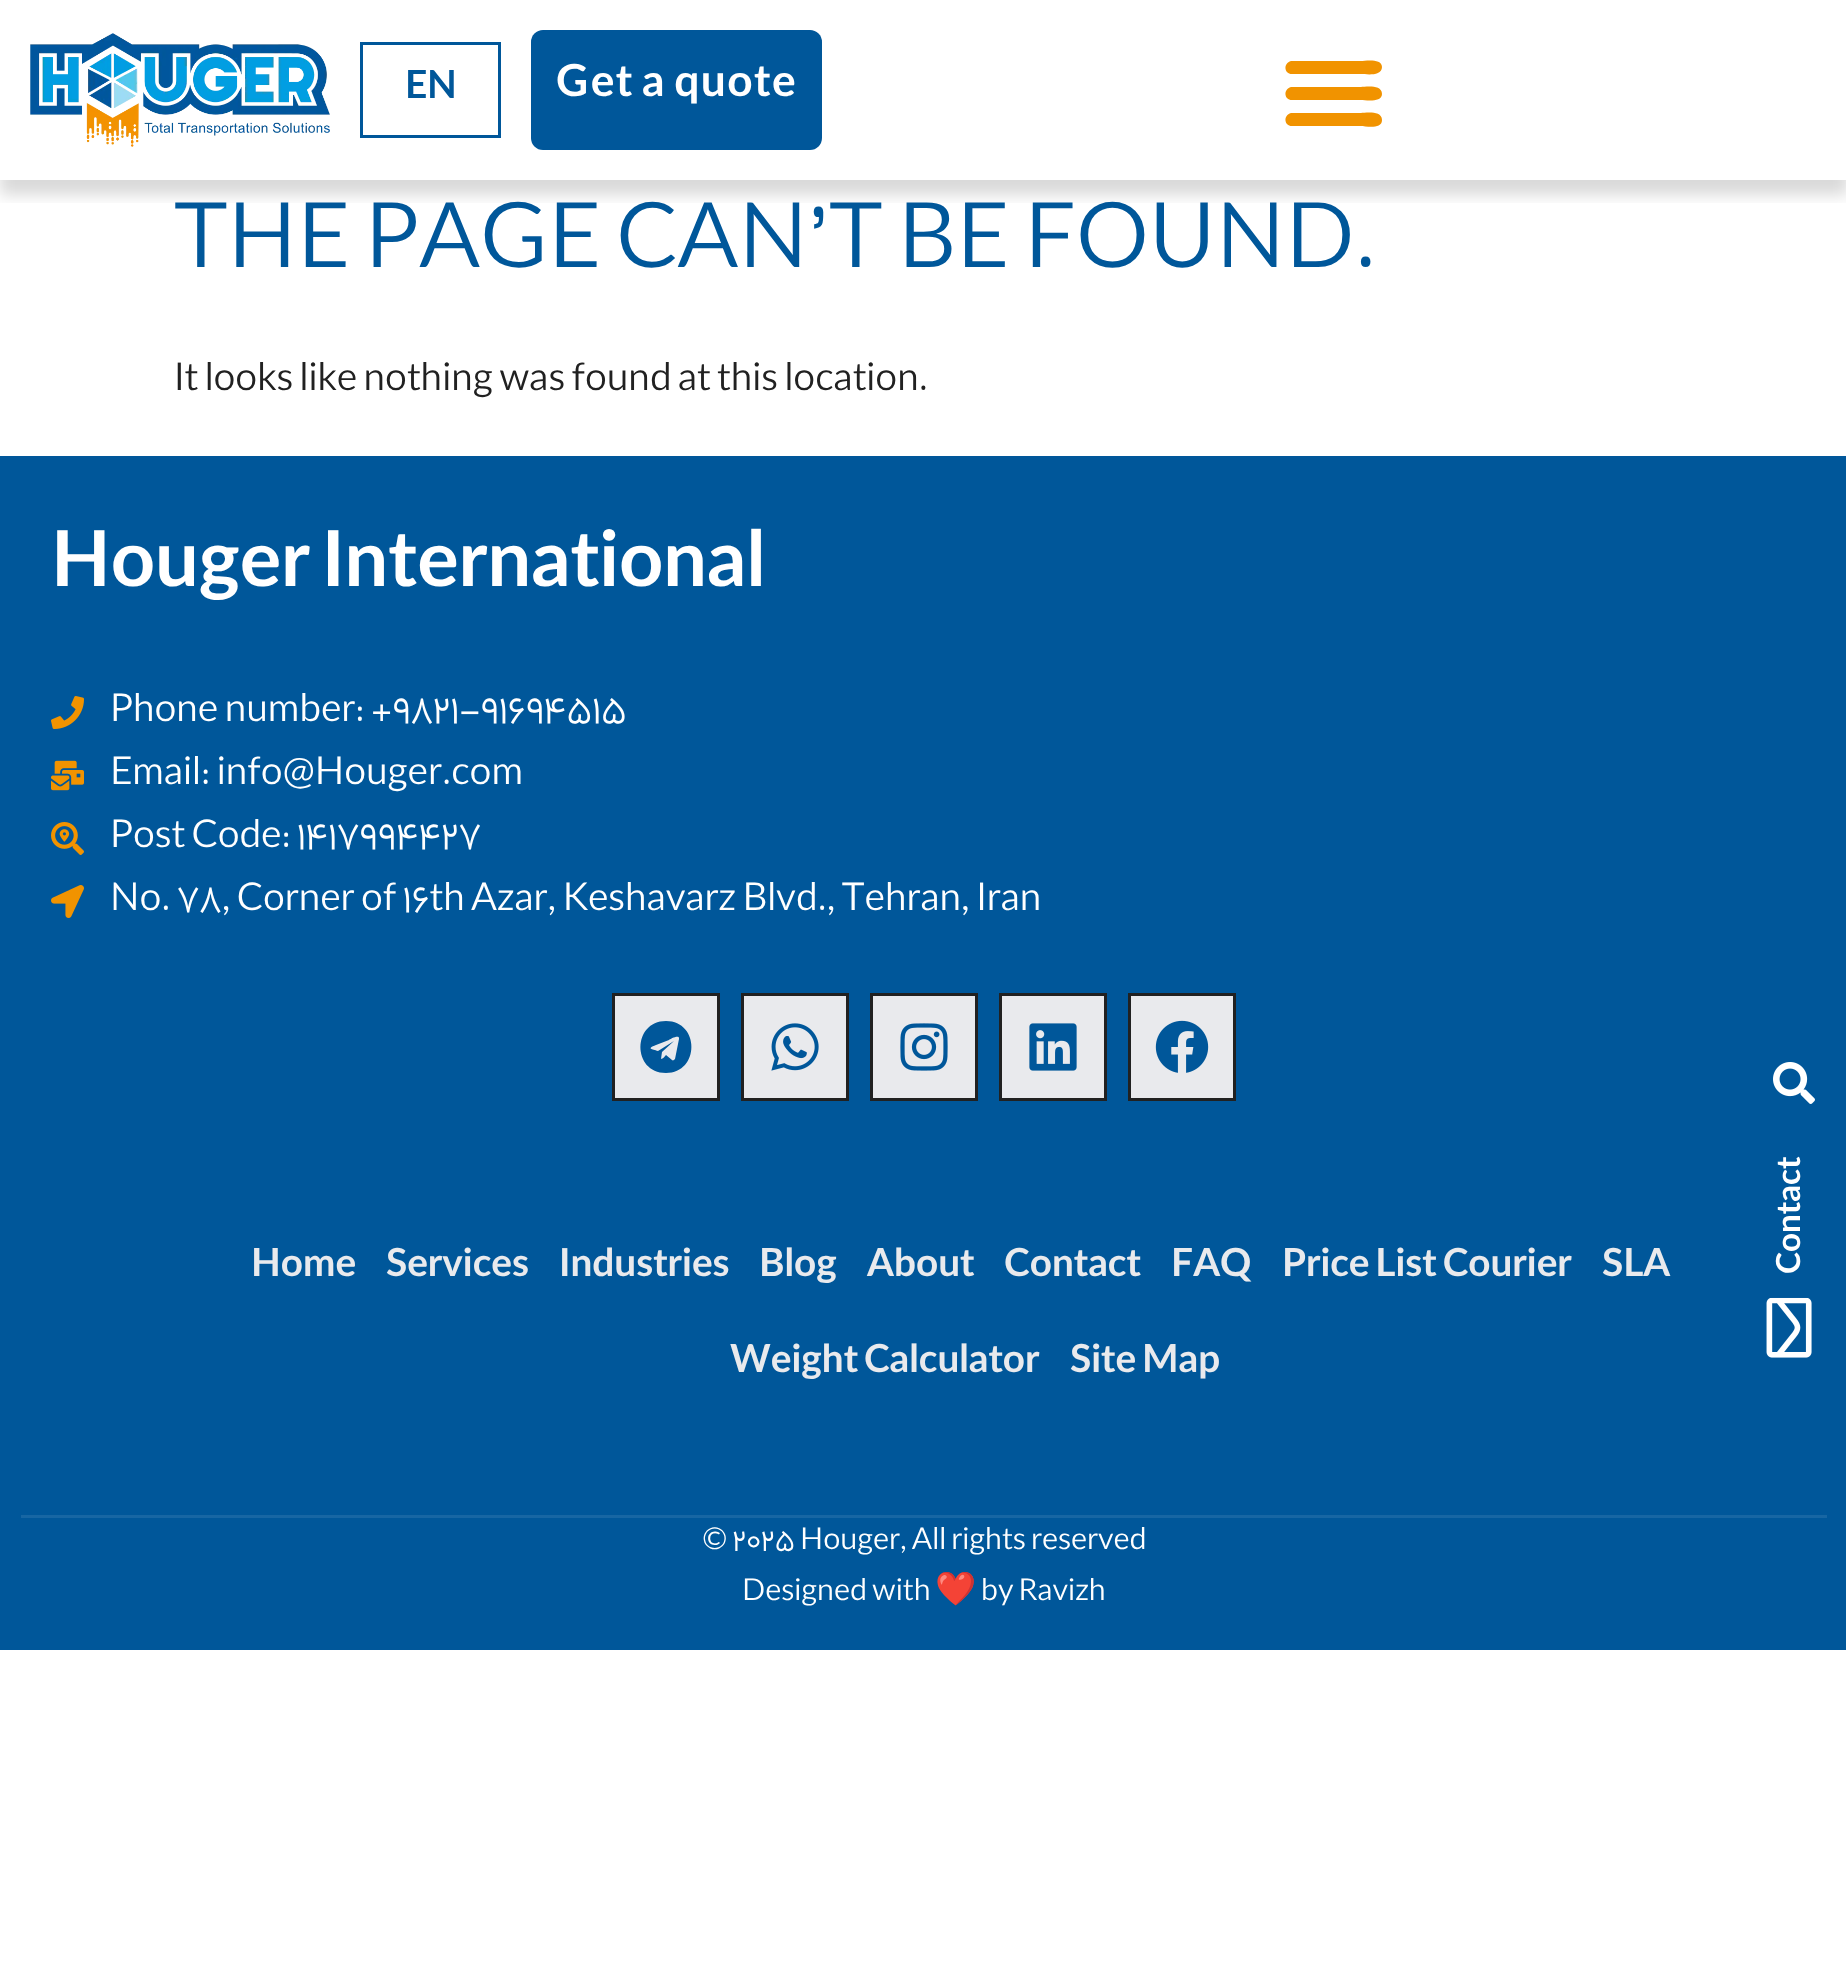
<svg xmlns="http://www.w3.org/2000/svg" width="1846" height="1981">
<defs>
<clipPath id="clip1"><rect x="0" y="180" width="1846" height="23"/></clipPath>
</defs>
<rect width="100%" height="100%" fill="#fff"/>
<g clip-path="url(#clip1)">
<rect y="15" width="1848" height="180" fill="#00000026" filter="blur(7.5px)"/>
</g>
<image x="30" y="33" width="300" height="114" href="media/1.png"/>
<rect x="361.5" y="43.5" width="138" height="93" fill="none" stroke="#00579a" stroke-width="3"/>
<text x="405" y="98" style="font-family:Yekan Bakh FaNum;font-size:42px;font-weight:bold;fill:#00579a">EN</text>
<rect x="531" y="30" width="291" height="120" rx="12" fill="#00579a"/>
<text x="556" y="96" style="font-family:Yekan Bakh FaNum;font-size:48px;font-weight:bold;letter-spacing:1.5px;fill:#fff">Get a quote</text>
<path d="M1292 74h69c4 0 21 3 21-7c0-9-17-6-21-6h-70c-8 2-7 13 1 13zm0 26h69c4 0 21 3 21-6c0-10-17-7-21-7h-70c-8 2-7 13 1 13zm0 26h69c4 0 21 4 21-6c0-10-17-7-21-7h-70c-8 2-7 13 1 13z" fill="#f19300"/>
<text x="174" y="267" style="font-family:Yekan Bakh FaNum;font-size:99px;fill:#00579a">THE PAGE CAN’T BE FOUND.</text>
<text x="174" y="390" style="font-family:Yekan Bakh FaNum;font-size:42px;fill:#212121">It looks like nothing was found at this location.</text>
<rect y="456" width="1846" height="1194" fill="#00579a"/>
<text x="51" y="586" style="font-family:Yekan Bakh FaNum;font-size:84px;font-weight:bold;fill:#fff">Houger International</text>
<image x="51" y="696" width="33" height="33" href="media/2.png"/>
<text x="110" y="721" style="font-family:Yekan Bakh FaNum;font-size:42px;fill:#fff">Phone number: +9821-91694515</text>
<image x="51" y="760" width="33" height="31" href="media/3.png"/>
<text x="110" y="784" style="font-family:Yekan Bakh FaNum;font-size:42px;fill:#fff">Email: info@Houger.com</text>
<image x="51" y="822" width="33" height="33" href="media/4.png"/>
<text x="110" y="847" style="font-family:Yekan Bakh FaNum;font-size:42px;fill:#fff">Post Code: 1417994427</text>
<image x="51" y="885" width="33" height="33" href="media/5.png"/>
<text x="110" y="910" style="font-family:Yekan Bakh FaNum;font-size:42px;fill:#fff">No. 78, Corner of 16th Azar, Keshavarz Blvd., Tehran, Iran</text>
<rect x="613.5" y="994.5" width="105" height="105" fill="#e9eaed" stroke="#212121" stroke-width="3"/>
<path d="M666 1021c-34 0-34 52 0 52c34 0 34-52 0-52zm13 18l-4 20c-1 1-2 2-3 1l-6-5c-1 1-3 4-5 4l1-7l12-11l-16 10c-6-2-12-2-2-6l13-5c1-1 11-6 10-1z" fill="#00579a"/>
<rect x="742.5" y="994.5" width="105" height="105" fill="#e9eaed" stroke="#212121" stroke-width="3"/>
<image x="771" y="1023" width="48" height="48" href="media/6.png"/>
<rect x="871.5" y="994.5" width="105" height="105" fill="#e9eaed" stroke="#212121" stroke-width="3"/>
<image x="900" y="1023" width="48" height="48" href="media/7.png"/>
<rect x="1000.5" y="994.5" width="105" height="105" fill="#e9eaed" stroke="#212121" stroke-width="3"/>
<image x="1029" y="1023" width="48" height="48" href="media/8.png"/>
<rect x="1129.5" y="994.5" width="105" height="105" fill="#e9eaed" stroke="#212121" stroke-width="3"/>
<image x="1155" y="1020" width="54" height="53" href="media/9.png"/>
<text x="251" y="1276" style="font-family:Yekan Bakh FaNum;font-size:42px;font-weight:bold;fill:#e9eaed">Home</text>
<text x="386" y="1276" style="font-family:Yekan Bakh FaNum;font-size:42px;font-weight:bold;fill:#e9eaed">Services</text>
<text x="559" y="1276" style="font-family:Yekan Bakh FaNum;font-size:42px;font-weight:bold;fill:#e9eaed">Industries</text>
<text x="759" y="1276" style="font-family:Yekan Bakh FaNum;font-size:42px;font-weight:bold;fill:#e9eaed">Blog</text>
<text x="867" y="1276" style="font-family:Yekan Bakh FaNum;font-size:42px;font-weight:bold;fill:#e9eaed">About</text>
<text x="1004" y="1276" style="font-family:Yekan Bakh FaNum;font-size:42px;font-weight:bold;fill:#e9eaed">Contact</text>
<text x="1171" y="1276" style="font-family:Yekan Bakh FaNum;font-size:42px;font-weight:bold;fill:#e9eaed">FAQ</text>
<text x="1282" y="1276" style="font-family:Yekan Bakh FaNum;font-size:42px;font-weight:bold;fill:#e9eaed">Price List Courier</text>
<text x="1602" y="1276" style="font-family:Yekan Bakh FaNum;font-size:42px;font-weight:bold;fill:#e9eaed">SLA</text>
<text x="730" y="1372" style="font-family:Yekan Bakh FaNum;font-size:42px;font-weight:bold;fill:#e9eaed">Weight Calculator</text>
<text x="1070" y="1372" style="font-family:Yekan Bakh FaNum;font-size:42px;font-weight:bold;fill:#e9eaed">Site Map</text>
<rect x="21" y="1515" width="1806" height="3" fill="#1766a3"/>
<image x="1773" y="1062" width="42" height="42" href="media/10.png"/>
<text x="1800" y="1274" transform="rotate(-90 1800 1274)" style="font-family:Yekan Bakh FaNum;font-size:36px;font-weight:bold;fill:#fff">Contact</text>
<image x="1766" y="1297" width="46" height="61" href="media/11.png"/>
<text x="742" y="1600" style="font-family:Yekan Bakh FaNum;font-size:33px;fill:#fff">Designed with</text>
<text x="935" y="1600" style="font-family:Noto Color Emoji;font-size:33px;fill:#fff">❤️</text>
<text x="981" y="1600" style="font-family:Yekan Bakh FaNum;font-size:33px;fill:#fff">by Ravizh</text>
<text x="702" y="1549" style="font-family:Yekan Bakh FaNum;font-size:33px;fill:#fff">© 2025 Houger, All rights reserved</text>
</svg>
